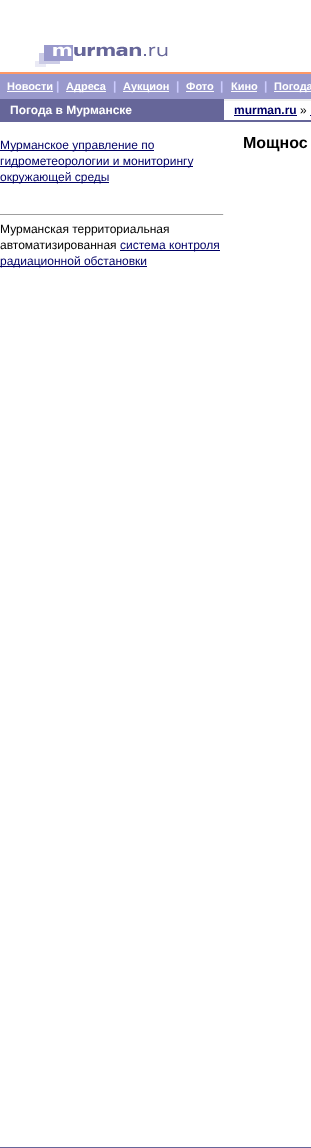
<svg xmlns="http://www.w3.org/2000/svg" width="311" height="1148">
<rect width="100%" height="100%" fill="#fff"/>
<image x="35" y="45" width="133" height="22" href="media/1.png"/>
<rect y="72" width="311" height="2" fill="#f96"/>
<rect y="74" width="311" height="25" fill="#99c"/>
<text x="7" y="90" style="font-family:Liberation Sans;font-size:11px;font-weight:bold;fill:#fff">Новости</text>
<rect x="7" y="91" width="46" height="1" fill="#fff"/>
<text x="56" y="90" style="font-family:Liberation Sans;font-size:12px;font-weight:bold;fill:#ccf">|</text>
<rect x="66" y="91" width="40" height="1" fill="#fff"/>
<text x="66" y="90" style="font-family:Liberation Sans;font-size:11px;font-weight:bold;fill:#fff">Адреса</text>
<text x="113" y="90" style="font-family:Liberation Sans;font-size:12px;font-weight:bold;fill:#ccf">|</text>
<rect x="123" y="91" width="46" height="1" fill="#fff"/>
<text x="123" y="90" style="font-family:Liberation Sans;font-size:11px;font-weight:bold;fill:#fff">Аукцион</text>
<text x="176" y="90" style="font-family:Liberation Sans;font-size:12px;font-weight:bold;fill:#ccf">|</text>
<text x="186" y="90" style="font-family:Liberation Sans;font-size:11px;font-weight:bold;fill:#fff">Фото</text>
<rect x="186" y="91" width="28" height="1" fill="#fff"/>
<text x="220" y="90" style="font-family:Liberation Sans;font-size:12px;font-weight:bold;fill:#ccf">|</text>
<text x="231" y="90" style="font-family:Liberation Sans;font-size:11px;font-weight:bold;fill:#fff">Кино</text>
<rect x="231" y="91" width="26" height="1" fill="#fff"/>
<text x="264" y="90" style="font-family:Liberation Sans;font-size:12px;font-weight:bold;fill:#ccf">|</text>
<rect x="274" y="91" width="37" height="1" fill="#fff"/>
<text x="274" y="90" style="font-family:Liberation Sans;font-size:11px;font-weight:bold;fill:#fff">Погода</text>
<rect y="99" width="224" height="23" fill="#669"/>
<text x="10" y="114" style="font-family:Liberation Sans;font-size:12px;font-weight:bold;fill:#fff">Погода в Мурманске</text>
<rect y="150" width="154" height="1" fill="#006"/>
<text x="0" y="149" style="font-family:Liberation Sans;font-size:12px;fill:#006">Мурманское управление по</text>
<rect y="166" width="193" height="1" fill="#006"/>
<text x="0" y="165" style="font-family:Liberation Sans;font-size:12px;fill:#006">гидрометеорологии и мониторингу</text>
<rect y="182" width="109" height="1" fill="#006"/>
<text x="0" y="181" style="font-family:Liberation Sans;font-size:12px;fill:#006">окружающей среды</text>
<rect y="214" width="224" height="1" fill="#9f9f9f"/>
<rect x="223" y="214" width="1" height="1" fill="#eee"/>
<text x="0" y="233" style="font-family:Liberation Sans;font-size:12px;fill:#000">Мурманская территориальная</text>
<text x="0" y="249" style="font-family:Liberation Sans;font-size:12px;fill:#000">автоматизированная</text>
<rect x="120" y="250" width="100" height="1" fill="#006"/>
<text x="120" y="249" style="font-family:Liberation Sans;font-size:12px;fill:#006">система контроля</text>
<rect y="266" width="147" height="1" fill="#006"/>
<text x="0" y="265" style="font-family:Liberation Sans;font-size:12px;fill:#006">радиационной обстановки</text>
<rect x="224" y="99" width="87" height="2" fill="#eee"/>
<text x="234" y="114" style="font-family:Liberation Sans;font-size:12px;font-weight:bold;fill:#006">murman.ru</text>
<rect x="234" y="115" width="63" height="1" fill="#006"/>
<text x="300" y="114" style="font-family:Liberation Sans;font-size:12px;fill:#000">»</text>
<rect x="310" y="115" width="1" height="1" fill="#006"/>
<rect x="224" y="120" width="87" height="2" fill="#669"/>
<text x="243" y="148" style="font-family:Liberation Sans;font-size:16px;font-weight:bold;fill:#000">Мощнос</text>
<rect y="1147" width="311" height="1" fill="#669"/>
</svg>
